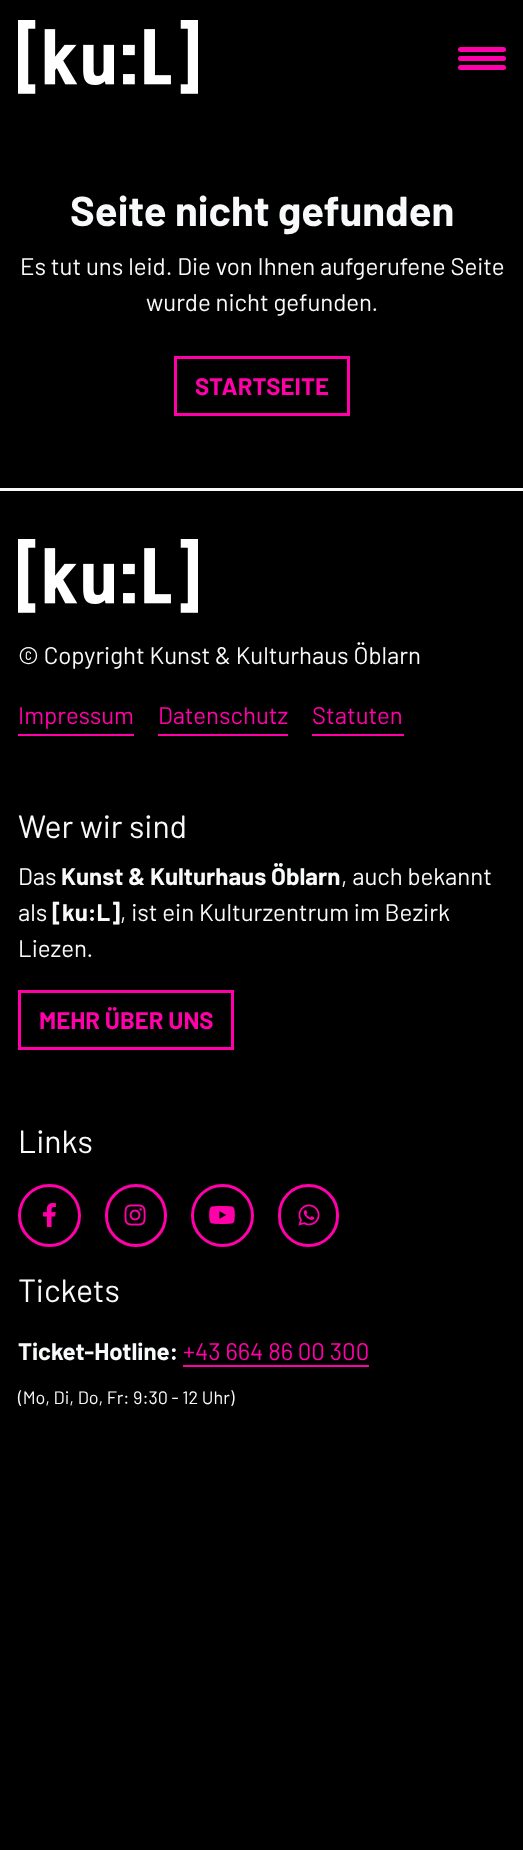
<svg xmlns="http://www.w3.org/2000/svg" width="523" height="1850">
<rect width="100%" height="100%" fill="#000"/>
<image x="18" y="20" width="180" height="74" href="media/1.png"/>
<rect x="458" y="47" width="48" height="5" rx="2.5" fill="#ff00a9"/>
<rect x="458" y="56" width="48" height="5" rx="2.5" fill="#ff00a9"/>
<rect x="458" y="65" width="48" height="5" rx="2.5" fill="#ff00a9"/>
<text x="70" y="226" style="font-family:Barlow;font-size:41.75px;font-weight:bold;fill:#f8f9fa">Seite nicht gefunden</text>
<text x="20" y="275" style="font-family:Barlow;font-size:24px;fill:#f8f9fa">Es tut uns leid. Die von Ihnen aufgerufene Seite</text>
<text x="146" y="311" style="font-family:Barlow;font-size:24px;fill:#f8f9fa">wurde nicht gefunden.</text>
<rect x="175.5" y="357.5" width="173" height="57" fill="none" stroke="#ff00a9" stroke-width="3"/>
<text x="195" y="395" style="font-family:Barlow;font-size:24px;font-weight:bold;fill:#ff00a9">STARTSEITE</text>
<rect y="488" width="523" height="3" fill="#f8f9fa"/>
<image x="18" y="539" width="180" height="74" href="media/1.png"/>
<text x="18" y="664" style="font-family:Barlow;font-size:24px;fill:#f8f9fa">© Copyright Kunst &amp; Kulturhaus Öblarn</text>
<rect x="18" y="734" width="116" height="2" fill="#ff00a9"/>
<text x="18" y="724" style="font-family:Barlow;font-size:24px;fill:#ff00a9">Impressum</text>
<rect x="158" y="734" width="130" height="2" fill="#ff00a9"/>
<text x="158" y="724" style="font-family:Barlow;font-size:24px;fill:#ff00a9">Datenschutz</text>
<rect x="312" y="734" width="92" height="2" fill="#ff00a9"/>
<text x="312" y="724" style="font-family:Barlow;font-size:24px;fill:#ff00a9">Statuten</text>
<text x="18" y="838" style="font-family:Barlow;font-size:32px;fill:#f8f9fa">Wer wir sind</text>
<text x="18" y="885" style="font-family:Barlow;font-size:24px;fill:#f8f9fa">Das</text>
<text x="61" y="885" style="font-family:Barlow;font-size:24px;font-weight:bold;fill:#f8f9fa">Kunst &amp; Kulturhaus Öblarn</text>
<text x="341" y="885" style="font-family:Barlow;font-size:24px;fill:#f8f9fa">, auch bekannt</text>
<text x="18" y="921" style="font-family:Barlow;font-size:24px;fill:#f8f9fa">als</text>
<text x="52" y="921" style="font-family:Barlow;font-size:24px;font-weight:bold;fill:#f8f9fa">[ku:L]</text>
<text x="120" y="921" style="font-family:Barlow;font-size:24px;fill:#f8f9fa">, ist ein Kulturzentrum im Bezirk</text>
<text x="18" y="957" style="font-family:Barlow;font-size:24px;fill:#f8f9fa">Liezen.</text>
<rect x="19.5" y="991.5" width="213" height="57" fill="none" stroke="#ff00a9" stroke-width="3"/>
<text x="39" y="1029" style="font-family:Barlow;font-size:24px;font-weight:bold;fill:#ff00a9">MEHR ÜBER UNS</text>
<text x="18" y="1153" style="font-family:Barlow;font-size:32px;fill:#f8f9fa">Links</text>
<circle cx="49.5" cy="1215.5" r="30" fill="none" stroke="#ff00a9" stroke-width="3"/>
<image x="43" y="1203" width="13" height="24" href="media/2.png"/>
<rect x="106.5" y="1185.5" width="59" height="60" rx="29.5" fill="none" stroke="#ff00a9" stroke-width="3"/>
<image x="124" y="1204" width="22" height="22" href="media/3.png"/>
<circle cx="222.5" cy="1215.5" r="30" fill="none" stroke="#ff00a9" stroke-width="3"/>
<image x="209" y="1206" width="26" height="18" href="media/4.png"/>
<rect x="279.5" y="1185.5" width="58" height="60" rx="29" fill="none" stroke="#ff00a9" stroke-width="3"/>
<image x="298" y="1204" width="22" height="22" href="media/5.png"/>
<text x="18" y="1302" style="font-family:Barlow;font-size:32px;fill:#f8f9fa">Tickets</text>
<text x="18" y="1360" style="font-family:Barlow;font-size:24px;font-weight:bold;fill:#f8f9fa">Ticket-Hotline:</text>
<text x="183" y="1360" style="font-family:Barlow;font-size:24px;fill:#ff00a9">+43 664 86 00 300</text>
<rect x="183" y="1365" width="186" height="2" fill="#ff00a9"/>
<text x="18" y="1404" style="font-family:Barlow;font-size:18px;fill:#f8f9fa">(Mo, Di, Do, Fr: 9:30 - 12 Uhr)</text>
</svg>
